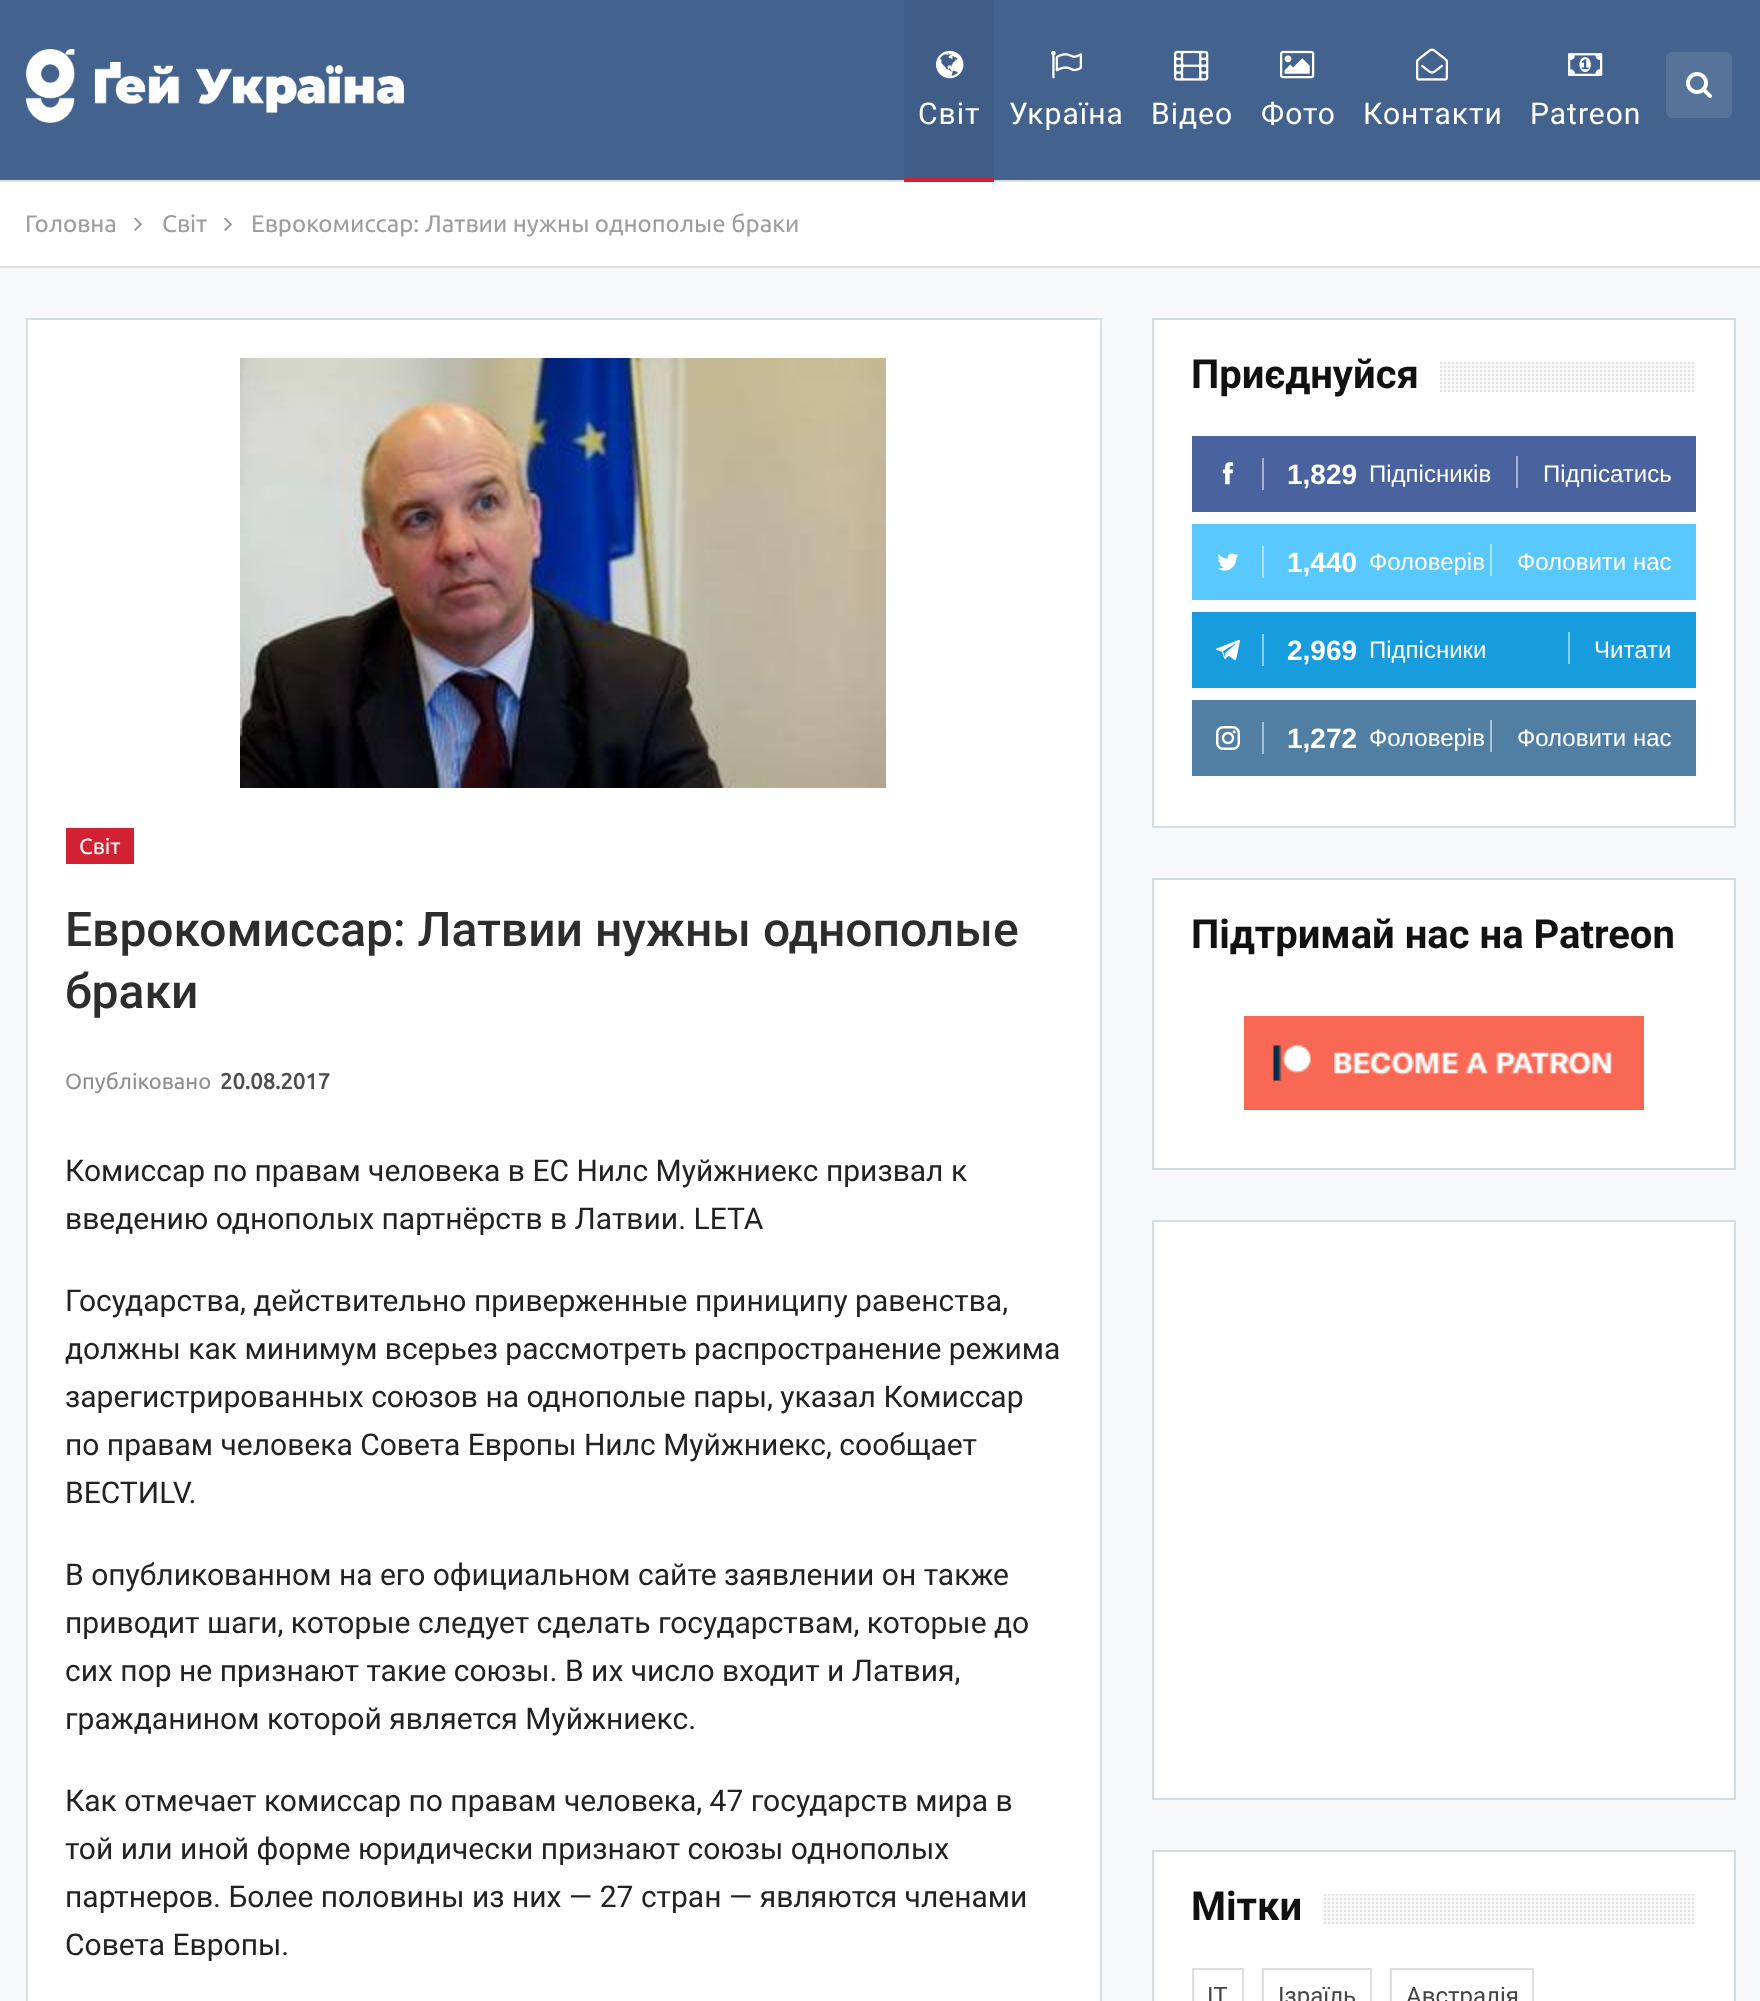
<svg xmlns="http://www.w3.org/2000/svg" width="1760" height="2001">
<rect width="100%" height="100%" fill="#f6f8fa"/>
<rect width="1760" height="180" fill="#43628e"/>
<rect y="180" width="1760" height="2" fill="#dedede"/>
<image x="26" y="49" width="378" height="74" href="media/1.png"/>
<rect x="904" width="90" height="178" fill="#405d87"/>
<image x="936" y="50" width="28" height="29" href="media/2.png"/>
<text x="918" y="124" style="font-family:Roboto;font-size:30px;letter-spacing:1px;fill:#fff">Світ</text>
<rect x="904" y="178" width="90" height="4" fill="#d12133"/>
<image x="1051" y="50" width="31" height="29" href="media/3.png"/>
<text x="1009" y="124" style="font-family:Roboto;font-size:30px;letter-spacing:1px;fill:#fff">Україна</text>
<image x="1174" y="50" width="35" height="31" href="media/4.png"/>
<text x="1151" y="124" style="font-family:Roboto;font-size:30px;letter-spacing:1px;fill:#fff">Відео</text>
<image x="1280" y="50" width="35" height="29" href="media/5.png"/>
<text x="1261" y="124" style="font-family:Roboto;font-size:30px;letter-spacing:1px;fill:#fff">Фото</text>
<image x="1416" y="48" width="32" height="33" href="media/6.png"/>
<text x="1363" y="124" style="font-family:Roboto;font-size:30px;letter-spacing:1px;fill:#fff">Контакти</text>
<image x="1568" y="53" width="35" height="23" href="media/7.png"/>
<text x="1530" y="124" style="font-family:Roboto;font-size:30px;letter-spacing:1px;fill:#fff">Patreon</text>
<rect x="1666" y="52" width="66" height="66" rx="6" fill="#58739a"/>
<image x="1686" y="72" width="26" height="26" href="media/8.png"/>
<rect y="182" width="1760" height="84" fill="#fff"/>
<rect y="266" width="1760" height="2" fill="#e2e2e2"/>
<text x="25" y="232" style="font-family:Ubuntu;font-size:24px;fill:#9e9e9e">Головна</text>
<image x="134" y="217" width="8" height="14" href="media/9.png"/>
<text x="162" y="232" style="font-family:Ubuntu;font-size:24px;fill:#9e9e9e">Світ</text>
<image x="224" y="217" width="8" height="14" href="media/9.png"/>
<text x="251" y="232" style="font-family:Ubuntu;font-size:24px;fill:#9e9e9e">Еврокомиссар: Латвии нужны однополые браки</text>
<rect x="27" y="319" width="1074" height="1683" fill="#fff" stroke="#d2dce3" stroke-width="2"/>
<image x="240" y="358" width="646" height="430" href="media/10.png"/>
<rect x="66" y="828" width="68" height="36" fill="#d12133"/>
<text x="79" y="854" style="font-family:Ubuntu;font-size:22px;fill:#fff">Світ</text>
<text x="65" y="946" style="font-family:Roboto;font-size:48px;font-weight:500;fill:#2d2d2d">Еврокомиссар: Латвии нужны однополые</text>
<text x="65" y="1008" style="font-family:Roboto;font-size:48px;font-weight:500;fill:#2d2d2d">браки</text>
<text x="65" y="1089" style="font-family:Ubuntu;font-size:22px;fill:#8f8f8f">Опубліковано</text>
<text x="220" y="1089" style="font-family:Ubuntu;font-size:22px;font-weight:bold;fill:#4d4d4d">20.08.2017</text>
<text x="65" y="1181" style="font-family:Roboto;font-size:30px;fill:#222">Комиссар по правам человека в ЕС Нилс Муйжниекс призвал к</text>
<text x="65" y="1229" style="font-family:Roboto;font-size:30px;fill:#222">введению однополых партнёрств в Латвии. LETA</text>
<text x="65" y="1311" style="font-family:Roboto;font-size:30px;fill:#222">Государства, действительно приверженные приниципу равенства,</text>
<text x="65" y="1359" style="font-family:Roboto;font-size:30px;fill:#222">должны как минимум всерьез рассмотреть распространение режима</text>
<text x="65" y="1407" style="font-family:Roboto;font-size:30px;fill:#222">зарегистрированных союзов на однополые пары, указал Комиссар</text>
<text x="65" y="1455" style="font-family:Roboto;font-size:30px;fill:#222">по правам человека Совета Европы Нилс Муйжниекс, сообщает</text>
<text x="65" y="1503" style="font-family:Roboto;font-size:30px;fill:#222">ВЕСТИLV.</text>
<text x="65" y="1585" style="font-family:Roboto;font-size:30px;fill:#222">В опубликованном на его официальном сайте заявлении он также</text>
<text x="65" y="1633" style="font-family:Roboto;font-size:30px;fill:#222">приводит шаги, которые следует сделать государствам, которые до</text>
<text x="65" y="1681" style="font-family:Roboto;font-size:30px;fill:#222">сих пор не признают такие союзы. В их число входит и Латвия,</text>
<text x="65" y="1729" style="font-family:Roboto;font-size:30px;fill:#222">гражданином которой является Муйжниекс.</text>
<text x="65" y="1811" style="font-family:Roboto;font-size:30px;fill:#222">Как отмечает комиссар по правам человека, 47 государств мира в</text>
<text x="65" y="1859" style="font-family:Roboto;font-size:30px;fill:#222">той или иной форме юридически признают союзы однополых</text>
<text x="65" y="1907" style="font-family:Roboto;font-size:30px;fill:#222">партнеров. Более половины из них — 27 стран — являются членами</text>
<text x="65" y="1955" style="font-family:Roboto;font-size:30px;fill:#222">Совета Европы.</text>
<rect x="1153" y="319" width="582" height="508" fill="#fff" stroke="#d2dce3" stroke-width="2"/>
<text x="1191" y="388" style="font-family:Roboto;font-size:40px;font-weight:bold;fill:#111">Приєднуйся</text>
<image x="1440" y="362" width="256" height="30" href="media/11.png"/>
<rect x="1192" y="436" width="504" height="76" fill="#4a639f"/>
<image x="1222" y="462" width="12" height="23" href="media/12.png"/>
<rect x="1262" y="458" width="2" height="32" fill="#a5b1cf"/>
<text x="1287" y="484" style="font-family:Liberation Sans;font-size:28px;font-weight:bold;fill:#fff">1,829</text>
<text x="1369" y="482" style="font-family:Liberation Sans;font-size:24px;fill:#fff">Підпісників</text>
<rect x="1516" y="456" width="2" height="32" fill="#a5b1cf"/>
<text x="1543" y="482" style="font-family:Liberation Sans;font-size:24px;fill:#fff">Підпісатись</text>
<rect x="1192" y="524" width="504" height="76" fill="#59c8ff"/>
<image x="1217" y="553" width="22" height="18" href="media/13.png"/>
<rect x="1262" y="546" width="2" height="32" fill="#ace4ff"/>
<text x="1287" y="572" style="font-family:Liberation Sans;font-size:28px;font-weight:bold;fill:#fff">1,440</text>
<text x="1369" y="570" style="font-family:Liberation Sans;font-size:24px;fill:#fff">Фоловерів</text>
<rect x="1490" y="544" width="2" height="32" fill="#ace4ff"/>
<text x="1517" y="570" style="font-family:Liberation Sans;font-size:24px;fill:#fff">Фоловити нас</text>
<rect x="1192" y="612" width="504" height="76" fill="#179cde"/>
<image x="1216" y="639" width="24" height="21" href="media/14.png"/>
<rect x="1262" y="634" width="2" height="32" fill="#8bceef"/>
<text x="1287" y="660" style="font-family:Liberation Sans;font-size:28px;font-weight:bold;fill:#fff">2,969</text>
<text x="1369" y="658" style="font-family:Liberation Sans;font-size:24px;fill:#fff">Підпісники</text>
<rect x="1568" y="632" width="2" height="32" fill="#8bceef"/>
<text x="1594" y="658" style="font-family:Liberation Sans;font-size:24px;fill:#fff">Читати</text>
<rect x="1192" y="700" width="504" height="76" fill="#517fa4"/>
<image x="1216" y="726" width="24" height="24" href="media/15.png"/>
<rect x="1262" y="722" width="2" height="32" fill="#a8bfd2"/>
<text x="1287" y="748" style="font-family:Liberation Sans;font-size:28px;font-weight:bold;fill:#fff">1,272</text>
<text x="1369" y="746" style="font-family:Liberation Sans;font-size:24px;fill:#fff">Фоловерів</text>
<rect x="1490" y="720" width="2" height="32" fill="#a8bfd2"/>
<text x="1517" y="746" style="font-family:Liberation Sans;font-size:24px;fill:#fff">Фоловити нас</text>
<rect x="1153" y="879" width="582" height="290" fill="#fff" stroke="#d2dce3" stroke-width="2"/>
<text x="1191" y="948" style="font-family:Roboto;font-size:40px;font-weight:bold;fill:#111">Підтримай нас на Patreon</text>
<image x="1244" y="1016" width="400" height="94" href="media/16.png"/>
<rect x="1153" y="1221" width="582" height="578" fill="#fff" stroke="#d2dce3" stroke-width="2"/>
<rect x="1153" y="1851" width="582" height="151" fill="#fff" stroke="#d2dce3" stroke-width="2"/>
<text x="1191" y="1920" style="font-family:Roboto;font-size:40px;font-weight:bold;fill:#111">Мітки</text>
<image x="1322" y="1894" width="374" height="30" href="media/17.png"/>
<rect x="1193" y="1969" width="50" height="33" fill="none" stroke="#dedede" stroke-width="2"/>
<text x="1207" y="2004" style="font-family:Roboto;font-size:24px;fill:#444">IT</text>
<rect x="1263" y="1969" width="108" height="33" fill="none" stroke="#dedede" stroke-width="2"/>
<text x="1278" y="2004" style="font-family:Roboto;font-size:24px;fill:#444">Ізраїль</text>
<rect x="1391" y="1969" width="142" height="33" fill="none" stroke="#dedede" stroke-width="2"/>
<text x="1406" y="2004" style="font-family:Roboto;font-size:24px;fill:#444">Австралія</text>
</svg>
